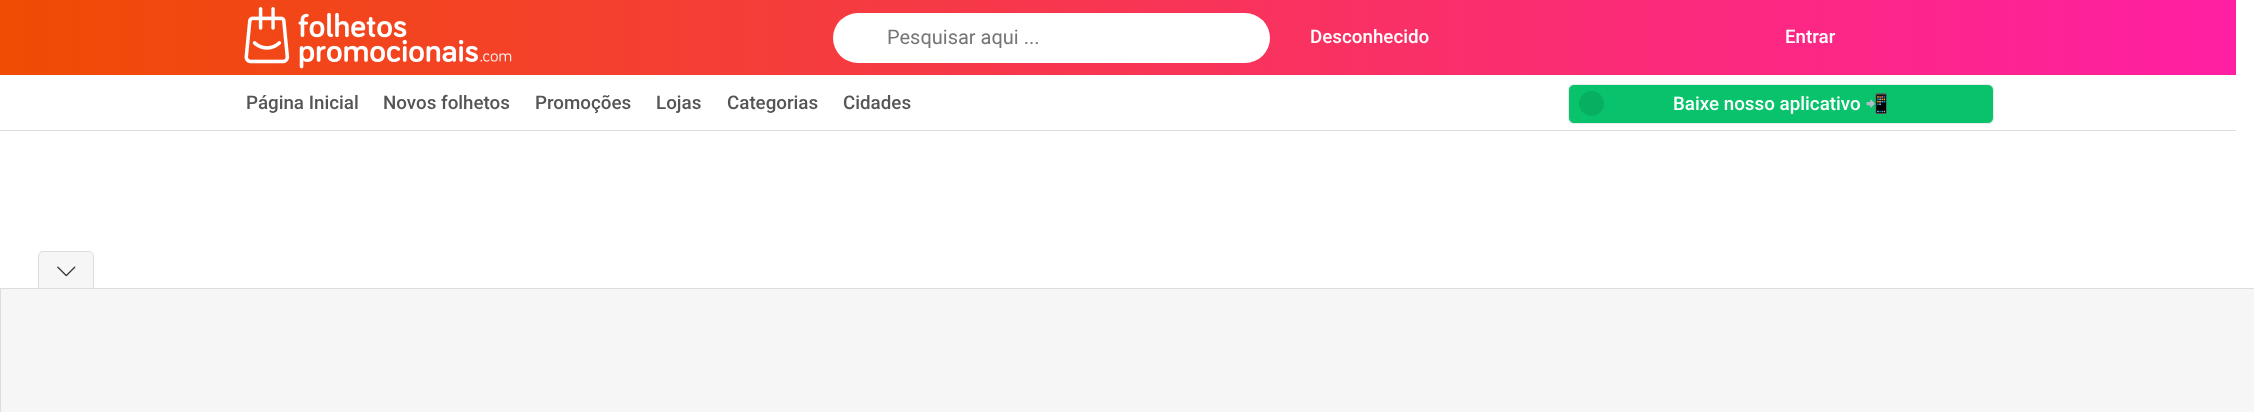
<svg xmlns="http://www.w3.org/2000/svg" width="2254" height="412">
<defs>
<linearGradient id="g1" gradientUnits="userSpaceOnUse" x1="2236" y1="65" x2="0" y2="65"><stop offset="0" stop-color="#ff1fa3"/><stop offset="1" stop-color="#f04c03"/></linearGradient>
</defs>
<rect width="100%" height="100%" fill="#fff"/>
<rect y="1" width="2236" height="130" fill="#ddd" filter="blur(0.5px)"/>
<rect width="2236" height="75" fill="url(#g1)"/>
<image x="244" y="7" width="268" height="62" href="media/1.png"/>
<rect x="833" y="13" width="437" height="50" rx="25" fill="#fff"/>
<text x="887" y="44" style="font-family:Roboto;font-size:20px;fill:#757575">Pesquisar aqui ...</text>
<text x="1310" y="43" style="font-family:Roboto;font-size:18.75px;font-weight:500;fill:#fff">Desconhecido</text>
<text x="1785" y="43" style="font-family:Roboto;font-size:18.75px;font-weight:500;fill:#fff">Entrar</text>
<rect y="75" width="2236" height="55" fill="#fff"/>
<text x="246" y="109" style="font-family:Roboto;font-size:18.75px;font-weight:500;fill:#555">Página Inicial</text>
<text x="383" y="109" style="font-family:Roboto;font-size:18.75px;font-weight:500;fill:#555">Novos folhetos</text>
<text x="535" y="109" style="font-family:Roboto;font-size:18.75px;font-weight:500;fill:#555">Promoções</text>
<text x="656" y="109" style="font-family:Roboto;font-size:18.75px;font-weight:500;fill:#555">Lojas</text>
<text x="727" y="109" style="font-family:Roboto;font-size:18.75px;font-weight:500;fill:#555">Categorias</text>
<text x="843" y="109" style="font-family:Roboto;font-size:18.75px;font-weight:500;fill:#555">Cidades</text>
<rect x="1568.5" y="84.5" width="425" height="39" rx="5.5" fill="#08c36c" stroke="#eaeaea"/>
<circle cx="1591.5" cy="103.5" r="12.5" fill="#07b061"/>
<text x="1673" y="110" style="font-family:Roboto;font-size:18.75px;font-weight:500;fill:#fff">Baixe nosso aplicativo</text>
<text x="1865" y="110" style="font-family:Noto Color Emoji;font-size:18.75px;fill:#fff">📲</text>
<rect x="0.5" y="288.5" width="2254" height="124" fill="#f6f6f6" stroke="#ddd"/>
<path d="M43 251.5h46c2.5 0 4.5 2 4.5 4.5v32.5h-55v-32.5c0-2.5 2-4.5 4.5-4.5z" fill="#f6f6f6" stroke="#ddd"/>
<image x="57" y="266" width="19" height="11" href="media/2.png"/>
</svg>
